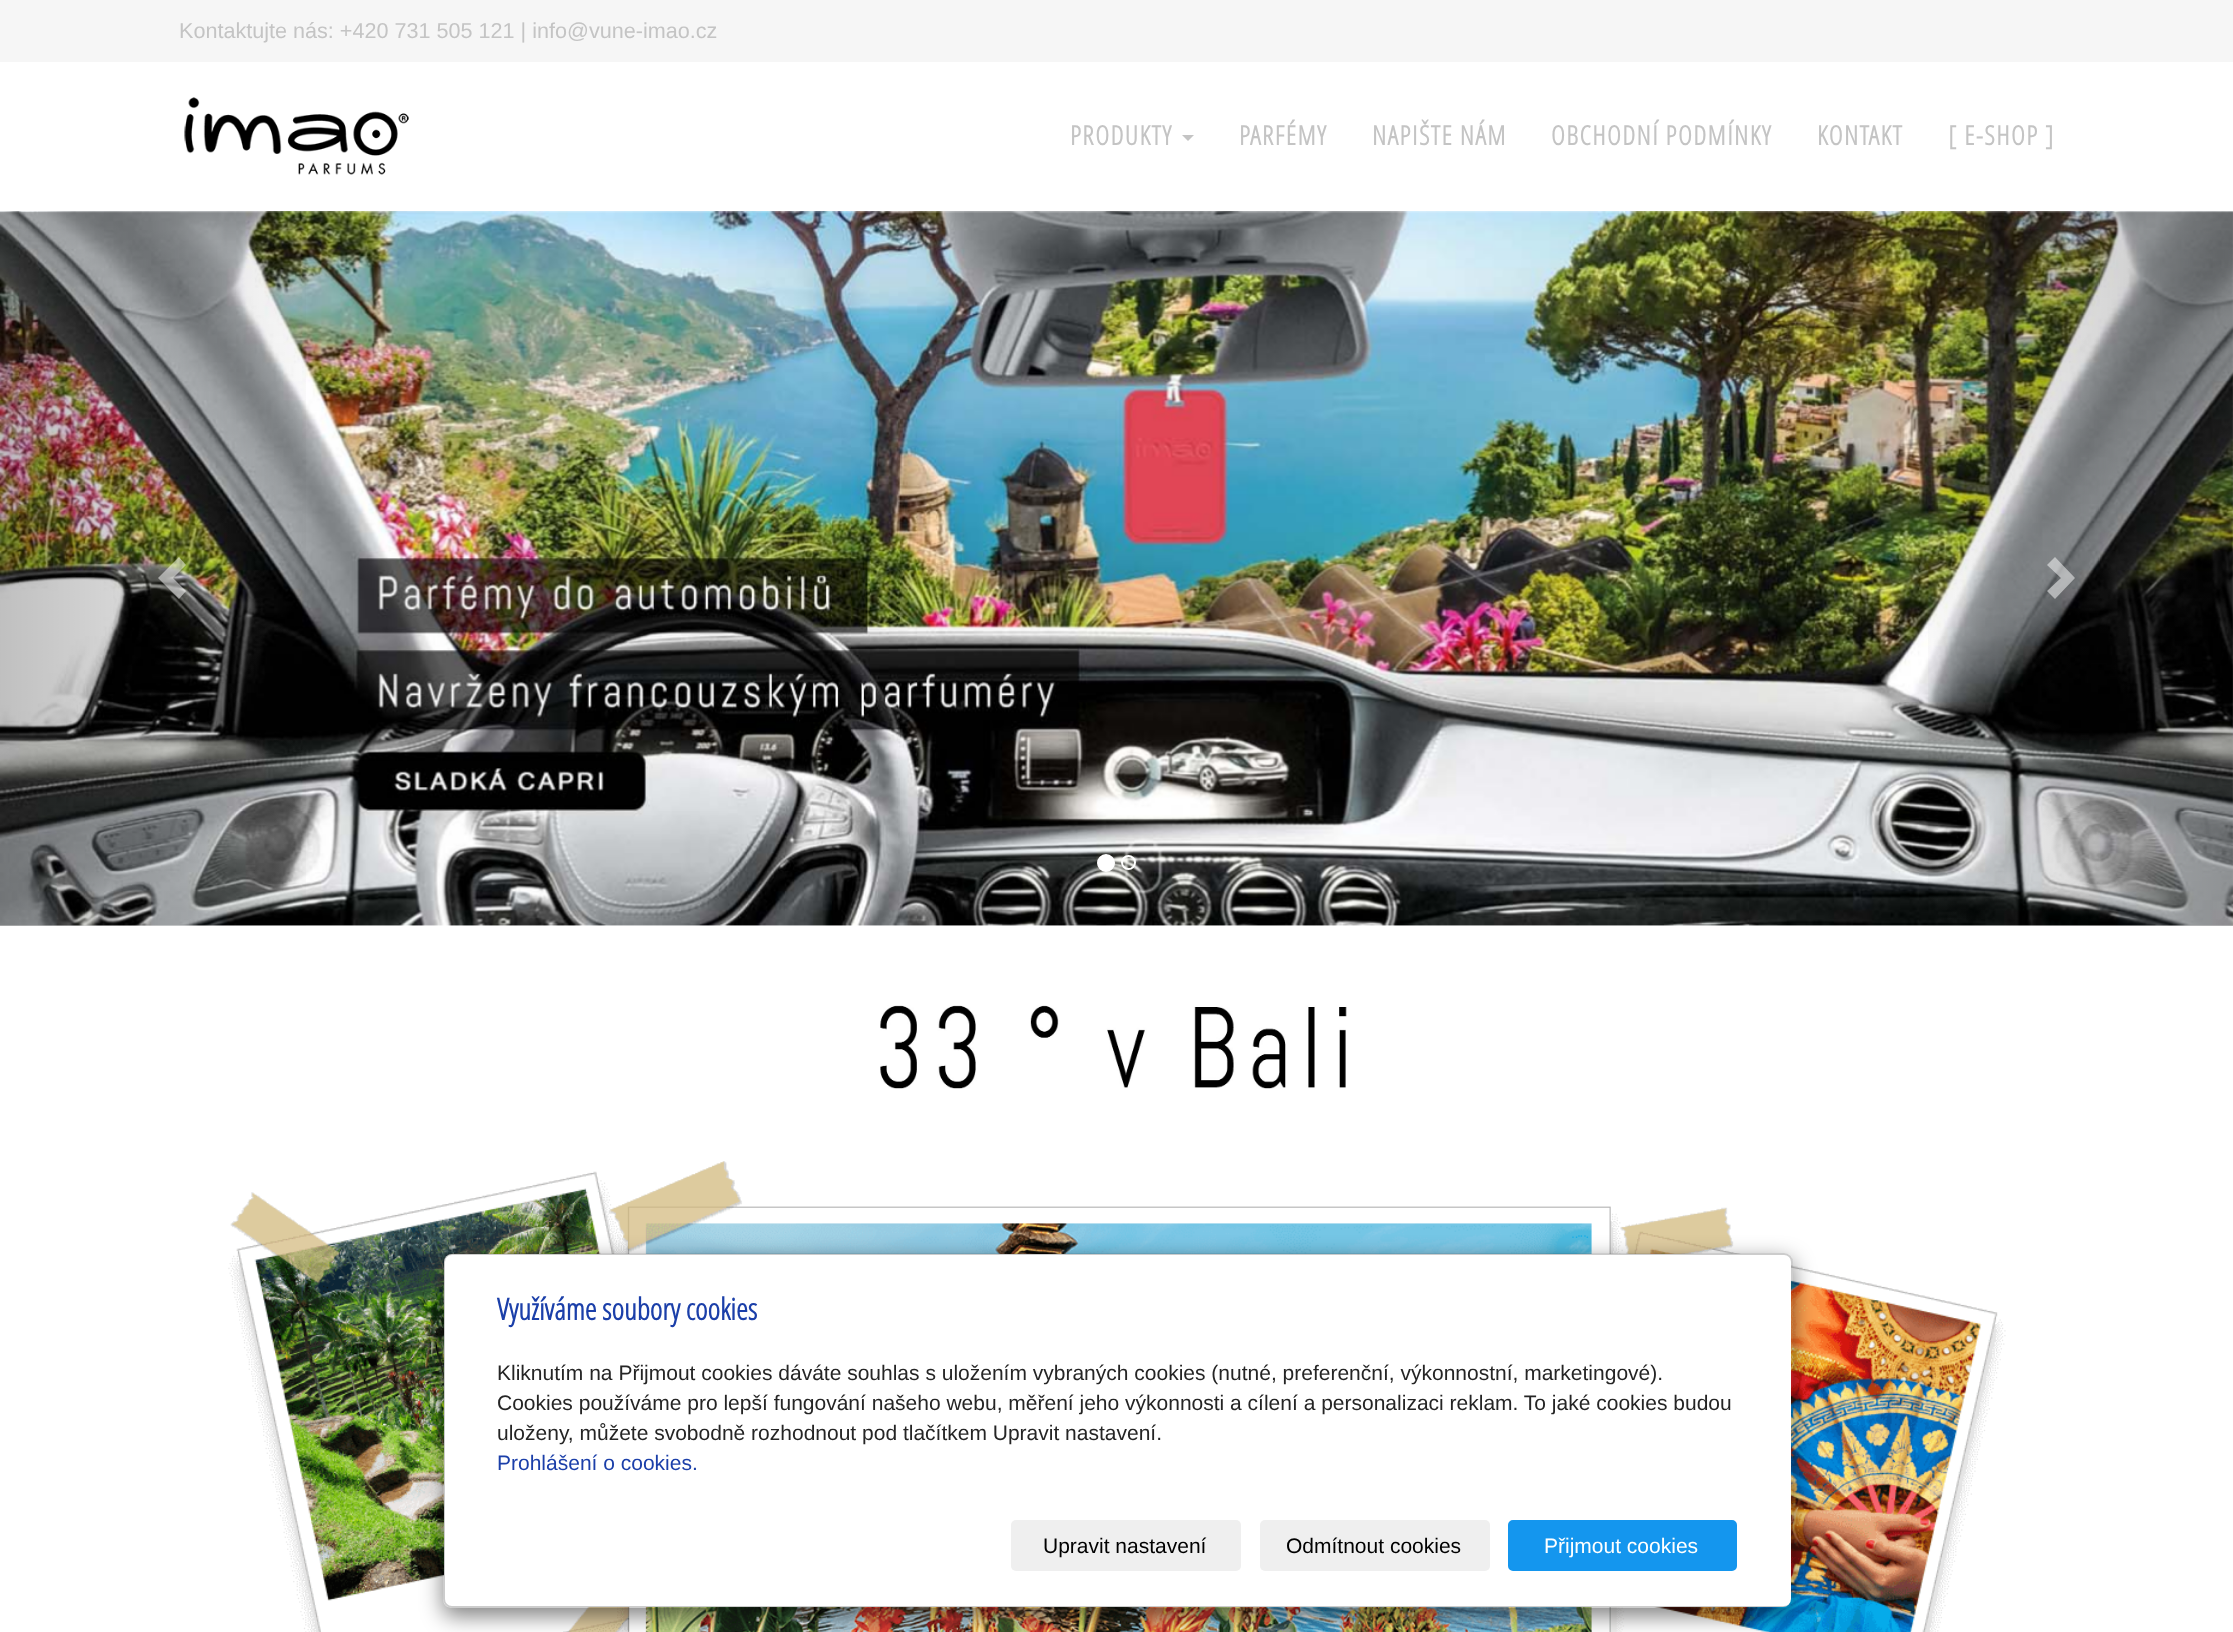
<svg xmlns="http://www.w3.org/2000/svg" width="2233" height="1632">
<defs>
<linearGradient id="g1" gradientUnits="userSpaceOnUse" x1="0" y1="569" x2="335" y2="569"><stop offset="0" stop-color="#000" stop-opacity="0.25"/><stop offset="1" stop-color="#000" stop-opacity="0"/></linearGradient>
<linearGradient id="g2" gradientUnits="userSpaceOnUse" x1="1899" y1="569" x2="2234" y2="569"><stop offset="0" stop-color="#000" stop-opacity="0"/><stop offset="1" stop-color="#000" stop-opacity="0.25"/></linearGradient>
<clipPath id="clip1"><path d="M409 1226h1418v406h-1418zm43 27h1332c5 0 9 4 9 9v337c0 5-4 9-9 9h-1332c-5 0-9-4-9-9v-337c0-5 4-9 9-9z" clip-rule="evenodd"/></clipPath>
</defs>
<rect width="100%" height="100%" fill="#f6f6f6"/>
<text x="179" y="38" style="font-family:Liberation Sans;font-size:21.6px;fill:#c4c4c4">Kontaktujte nás: +420 731 505 121 | info@vune-imao.cz</text>
<rect y="62" width="2233" height="1570" fill="#fff"/>
<image x="184" y="97" width="225" height="78" href="media/1.png"/>
<text x="1070" y="145" style="font-family:Open Sans;font-size:26.5px;font-weight:bold;letter-spacing:1.5px;fill:#c4c4c4">PRODUKTY</text>
<path d="M1182 135h12l-6 6z" fill="#c4c4c4"/>
<text x="1239" y="145" style="font-family:Open Sans;font-size:26.5px;font-weight:bold;letter-spacing:1.5px;fill:#c4c4c4">PARFÉMY</text>
<text x="1372" y="145" style="font-family:Open Sans;font-size:26.5px;font-weight:bold;letter-spacing:1.5px;fill:#c4c4c4">NAPIŠTE NÁM</text>
<text x="1551" y="145" style="font-family:Open Sans;font-size:26.5px;font-weight:bold;letter-spacing:1.5px;fill:#c4c4c4">OBCHODNÍ PODMÍNKY</text>
<text x="1817" y="145" style="font-family:Open Sans;font-size:26.5px;font-weight:bold;letter-spacing:1.5px;fill:#c4c4c4">KONTAKT</text>
<text x="1948" y="145" style="font-family:Open Sans;font-size:26.5px;font-weight:bold;letter-spacing:1.5px;fill:#c4c4c4">[ E-SHOP ]</text>
<image x="0" y="211" width="2233" height="715" href="media/2.png"/>
<rect y="212" width="306" height="714" fill="url(#g1)"/>
<path d="M186 565l-13 13l13 13l-7 8l-21-21l21-21z" fill="#ffffff80"/>
<circle cx="1106" cy="863" r="8" fill="#fff" stroke="#fff" stroke-width="2"/>
<circle cx="1128.5" cy="862.5" r="6.5" fill="none" stroke="#fff" stroke-width="2"/>
<rect x="1928" y="212" width="305" height="714" fill="url(#g2)"/>
<path d="M2075 578l-20 21l-8-8l14-13l-14-13l8-8z" fill="#ffffff80"/>
<image x="880" y="1005" width="467" height="84" href="media/3.png"/>
<image x="228" y="1161" width="1778" height="471" href="media/4.png"/>
<g clip-path="url(#clip1)">
<rect x="443" y="1260" width="1350" height="356" rx="9" fill="#00000080" filter="blur(11px)"/>
</g>
<rect x="444" y="1254" width="1347" height="353" rx="8" fill="#fff"/>
<rect x="444" y="1254" width="1348" height="353" rx="8" fill="none" stroke="#00000033" stroke-width="2"/>
<text x="497" y="1320" style="font-family:Open Sans;font-size:30px;font-weight:bold;fill:#1b3fa9">Využíváme soubory cookies</text>
<text x="497" y="1380" style="font-family:Liberation Sans;font-size:21px;fill:#252525">Kliknutím na Přijmout cookies dáváte souhlas s uložením vybraných cookies (nutné, preferenční, výkonnostní, marketingové).</text>
<text x="497" y="1410" style="font-family:Liberation Sans;font-size:21px;fill:#252525">Cookies používáme pro lepší fungování našeho webu, měření jeho výkonnosti a cílení a personalizaci reklam. To jaké cookies budou</text>
<text x="497" y="1440" style="font-family:Liberation Sans;font-size:21px;fill:#252525">uloženy, můžete svobodně rozhodnout pod tlačítkem Upravit nastavení.</text>
<text x="497" y="1470" style="font-family:Liberation Sans;font-size:21px;fill:#1b3fa9">Prohlášení o cookies.</text>
<rect x="1011" y="1520" width="230" height="51" rx="5" fill="#efefef"/>
<text x="1043" y="1553" style="font-family:Liberation Sans;font-size:21px;fill:#000">Upravit nastavení</text>
<rect x="1260" y="1520" width="230" height="51" rx="5" fill="#efefef"/>
<text x="1286" y="1553" style="font-family:Liberation Sans;font-size:21px;fill:#000">Odmítnout cookies</text>
<rect x="1509" y="1521" width="227" height="49" rx="4" fill="#1496ee" stroke="#1496ee" stroke-width="2"/>
<text x="1544" y="1553" style="font-family:Liberation Sans;font-size:21px;fill:#fff">Přijmout cookies</text>
</svg>
